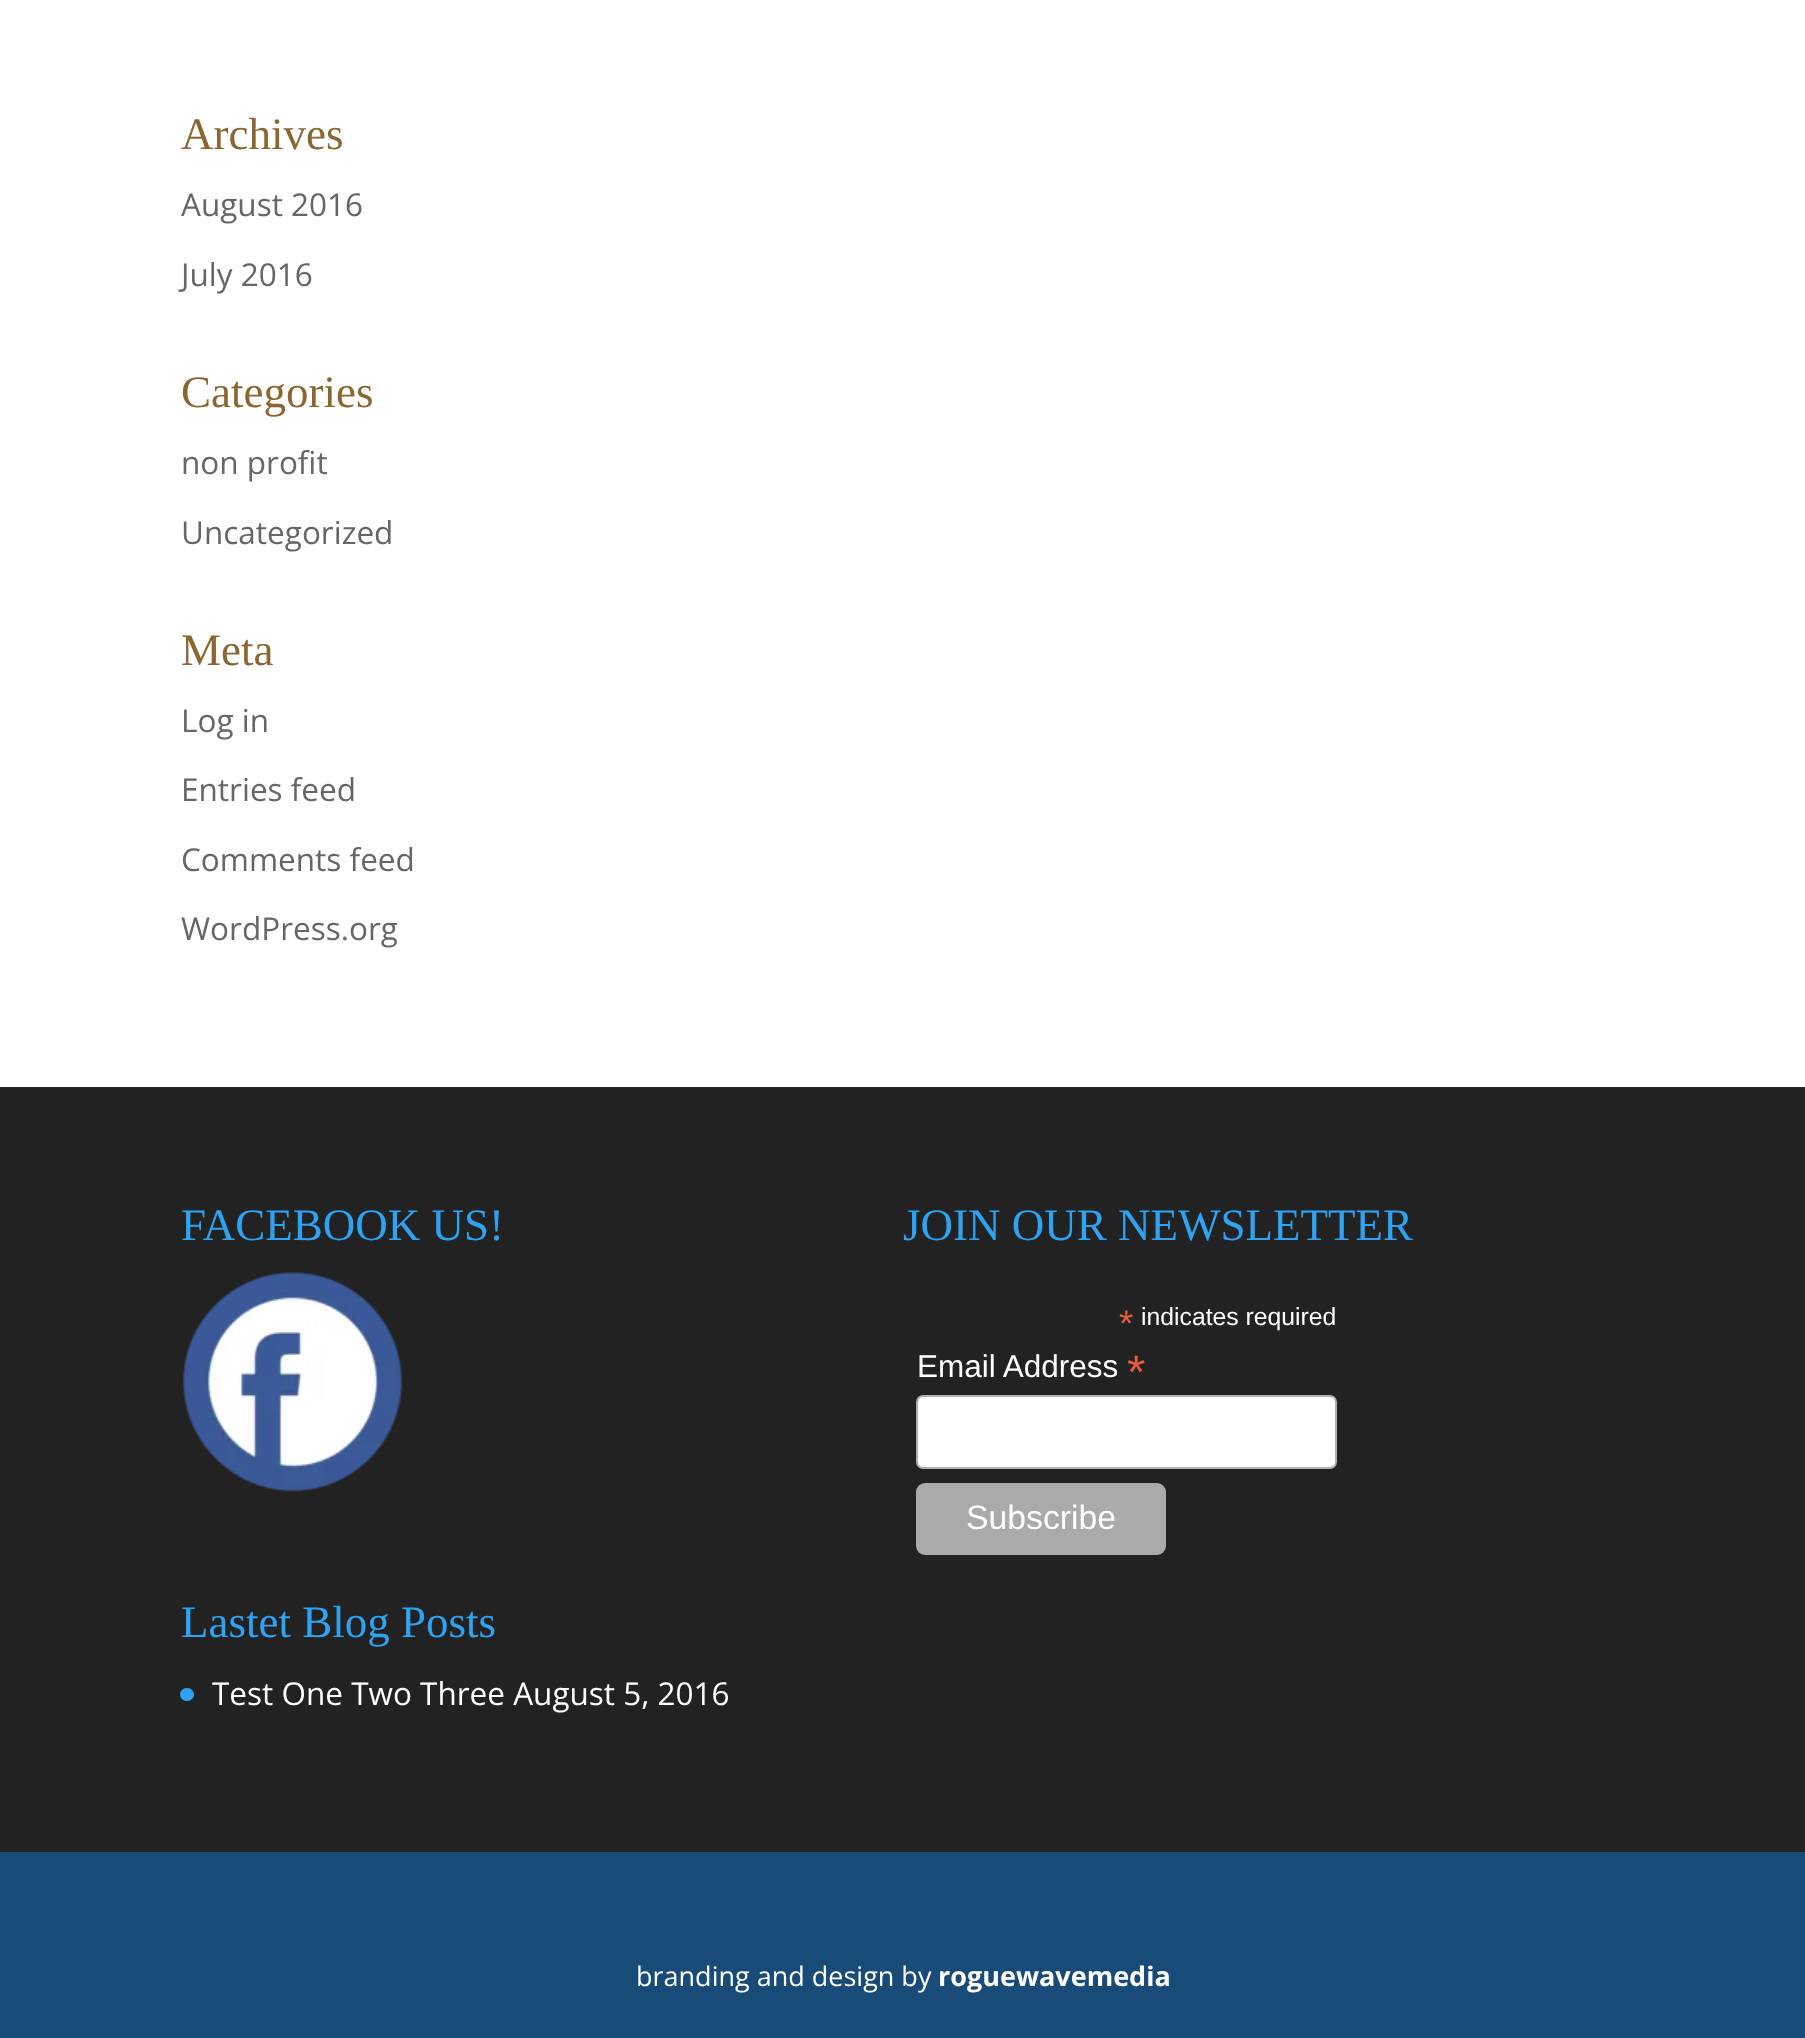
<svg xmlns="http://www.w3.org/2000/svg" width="1805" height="2038">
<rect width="100%" height="100%" fill="#fff"/>
<text x="181" y="149" style="font-family:Liberation Serif;font-size:45px;fill:#8a6631">Archives</text>
<text x="181" y="216" style="font-family:Open Sans;font-size:31.5px;fill:#666">August 2016</text>
<text x="181" y="286" style="font-family:Open Sans;font-size:31.5px;fill:#666">July 2016</text>
<text x="181" y="407" style="font-family:Liberation Serif;font-size:45px;fill:#8a6631">Categories</text>
<text x="181" y="474" style="font-family:Open Sans;font-size:31.5px;fill:#666">non profit</text>
<text x="181" y="544" style="font-family:Open Sans;font-size:31.5px;fill:#666">Uncategorized</text>
<text x="181" y="665" style="font-family:Liberation Serif;font-size:45px;fill:#8a6631">Meta</text>
<text x="181" y="732" style="font-family:Open Sans;font-size:31.5px;fill:#666">Log in</text>
<text x="181" y="801" style="font-family:Open Sans;font-size:31.5px;fill:#666">Entries feed</text>
<text x="181" y="871" style="font-family:Open Sans;font-size:31.5px;fill:#666">Comments feed</text>
<text x="181" y="940" style="font-family:Open Sans;font-size:31.5px;fill:#666">WordPress.org</text>
<rect y="1087" width="1805" height="765" fill="#222"/>
<text x="181" y="1240" style="font-family:Liberation Serif;font-size:45px;fill:#2ea3f2">FACEBOOK US!</text>
<image x="182" y="1272" width="221" height="220" href="media/1.png"/>
<text x="903" y="1240" style="font-family:Liberation Serif;font-size:45px;fill:#2ea3f2">JOIN OUR NEWSLETTER</text>
<text x="1119" y="1336" style="font-family:Liberation Sans;font-size:37px;fill:#e85c41">*</text>
<text x="1141" y="1325" style="font-family:Liberation Sans;font-size:24.75px;fill:#fff">indicates required</text>
<text x="917" y="1377" style="font-family:Liberation Sans;font-size:31.5px;fill:#fff">Email Address</text>
<text x="1127" y="1388" style="font-family:Liberation Sans;font-size:47px;fill:#e85c41">*</text>
<rect x="917" y="1396" width="419" height="72" rx="6" fill="#fff" stroke="#abb0b2" stroke-width="2"/>
<rect x="916" y="1483" width="250" height="72" rx="9" fill="#aaa"/>
<text x="966" y="1529" style="font-family:Liberation Sans;font-size:33.75px;fill:#fff">Subscribe</text>
<text x="181" y="1637" style="font-family:Liberation Serif;font-size:45px;fill:#2ea3f2">Lastet Blog Posts</text>
<rect x="180" y="1688" width="14" height="13" rx="6.5" fill="#2ea3f2"/>
<text x="212" y="1705" style="font-family:Open Sans;font-size:31.5px;fill:#fff">Test One Two Three August 5, 2016</text>
<rect y="1852" width="1805" height="186" fill="#184b78"/>
<text x="636" y="1986" style="font-family:Open Sans;font-size:27px;fill:#fff">branding and design by</text>
<text x="938" y="1986" style="font-family:Open Sans;font-size:27px;font-weight:bold;fill:#fff">roguewavemedia</text>
</svg>
